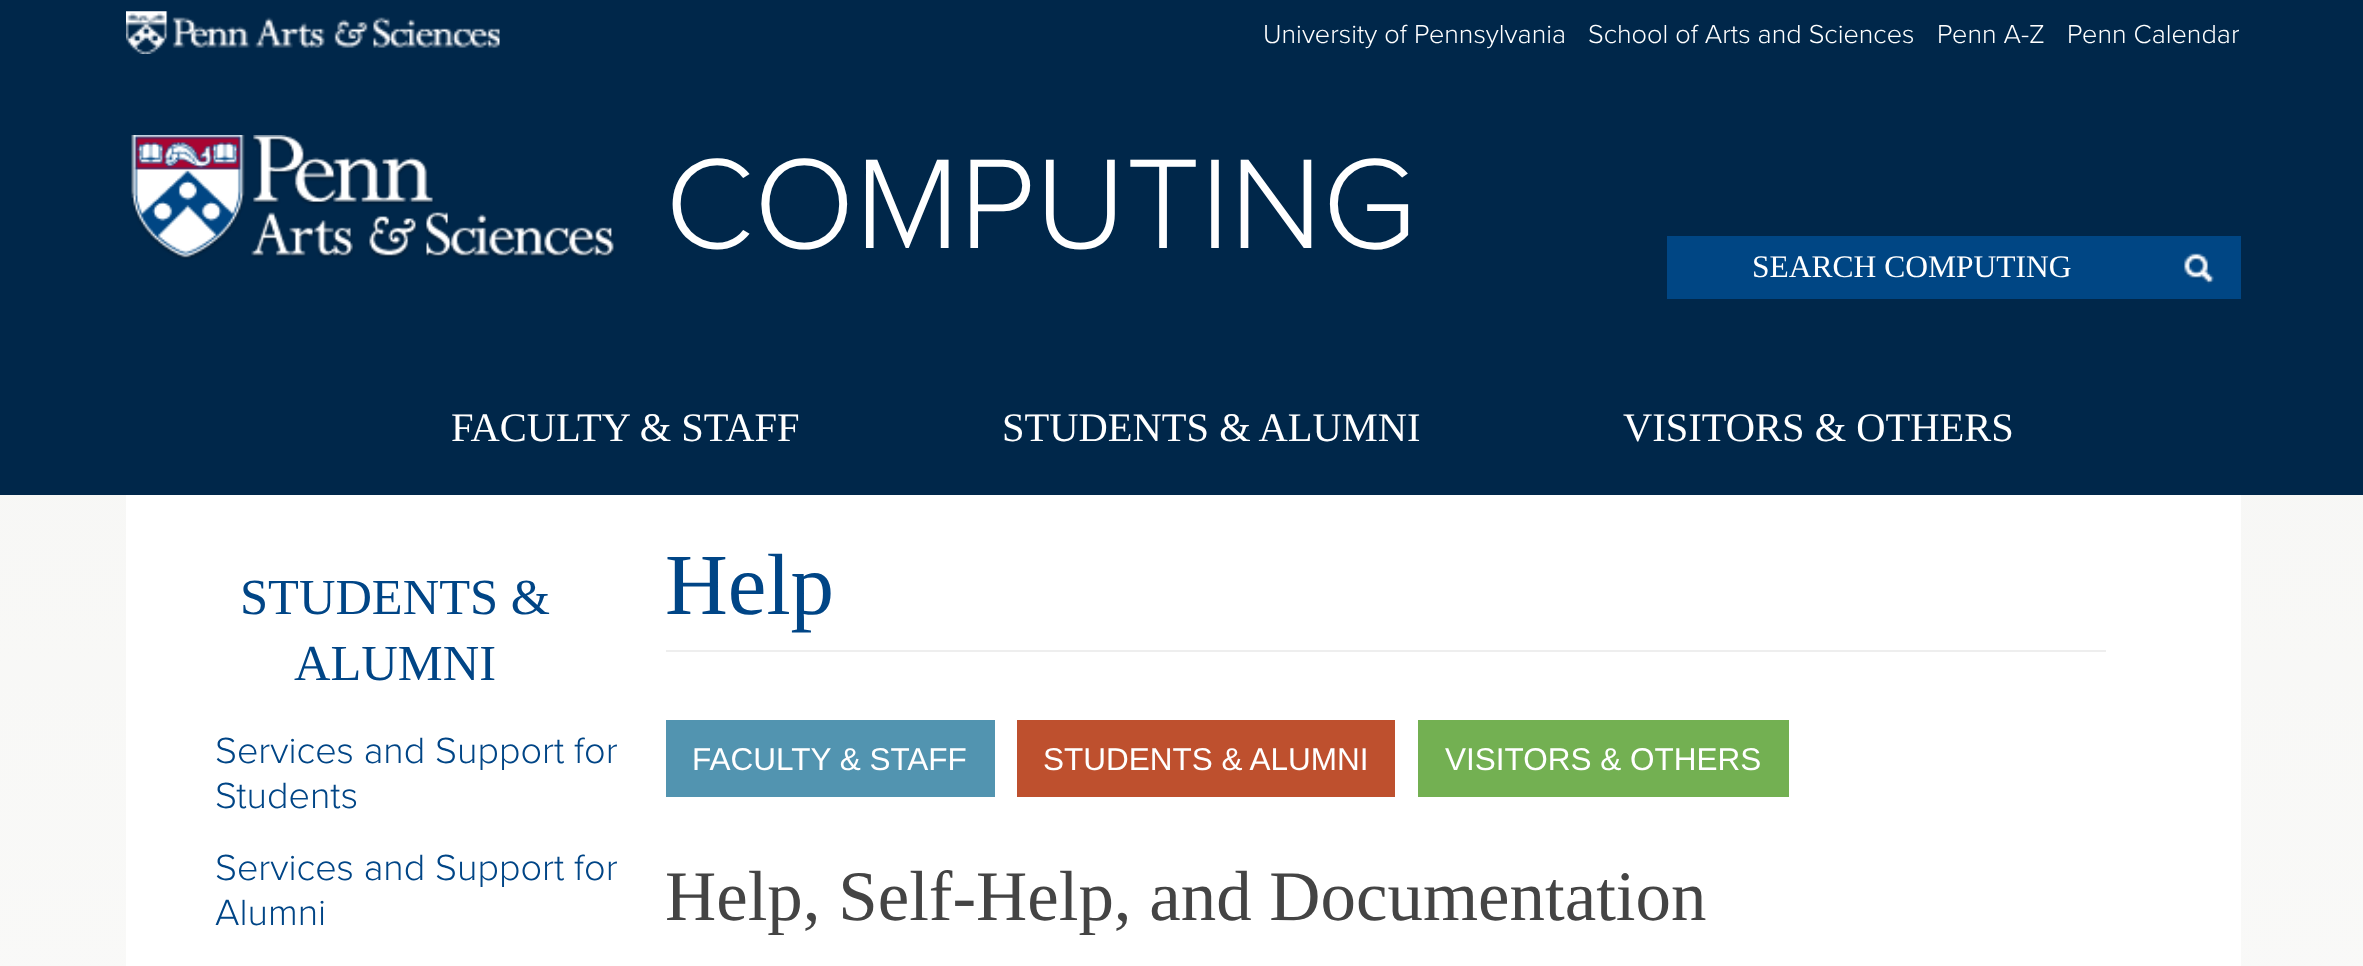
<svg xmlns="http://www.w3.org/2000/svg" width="2363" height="966">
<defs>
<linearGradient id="g1" gradientUnits="userSpaceOnUse" x1="1182" y1="0" x2="1182" y2="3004"><stop offset="0" stop-color="#f6f6f4"/><stop offset="1" stop-color="#fff"/></linearGradient>
</defs>
<rect width="100%" height="100%" fill="#fff"/>
<rect y="495" width="2363" height="471" fill="url(#g1)"/>
<rect width="2363" height="495" fill="#00274a"/>
<image x="126" y="11" width="374" height="43" href="media/1.png"/>
<text x="1263" y="43" style="font-family:Proxima Nova;font-size:27px;font-weight:300;fill:#fff">University of Pennsylvania</text>
<text x="1588" y="43" style="font-family:Proxima Nova;font-size:27px;font-weight:300;fill:#fff">School of Arts and Sciences</text>
<text x="1937" y="43" style="font-family:Proxima Nova;font-size:27px;font-weight:300;fill:#fff">Penn A-Z</text>
<text x="2067" y="43" style="font-family:Proxima Nova;font-size:27px;font-weight:300;fill:#fff">Penn Calendar</text>
<image x="131" y="135" width="483" height="125" href="media/2.png"/>
<text x="665" y="248" style="font-family:Proxima Nova;font-size:132.25px;font-weight:300;fill:#fff">COMPUTING</text>
<rect x="1667" y="236" width="574" height="63" fill="#004684"/>
<image x="2184" y="253" width="30" height="31" href="media/3.png"/>
<text x="1752" y="277" style="font-family:Liberation Serif;font-size:31.5px;fill:#fff">SEARCH COMPUTING</text>
<text x="451" y="441" style="font-family:Liberation Serif;font-size:40.5px;fill:#fff">FACULTY &amp; STAFF</text>
<text x="1002" y="441" style="font-family:Liberation Serif;font-size:40.5px;fill:#fff">STUDENTS &amp; ALUMNI</text>
<text x="1623" y="441" style="font-family:Liberation Serif;font-size:40.5px;fill:#fff">VISITORS &amp; OTHERS</text>
<rect x="126" y="495" width="2115" height="471" fill="#fff"/>
<text x="240" y="614" style="font-family:Liberation Serif;font-size:50.5px;fill:#004586">STUDENTS &amp;</text>
<text x="294" y="680" style="font-family:Liberation Serif;font-size:50.5px;fill:#004586">ALUMNI</text>
<text x="215" y="763" style="font-family:Proxima Nova;font-size:37.75px;font-weight:300;fill:#004586">Services and Support for</text>
<text x="215" y="808" style="font-family:Proxima Nova;font-size:37.75px;font-weight:300;fill:#004586">Students</text>
<text x="215" y="880" style="font-family:Proxima Nova;font-size:37.75px;font-weight:300;fill:#004586">Services and Support for</text>
<text x="215" y="925" style="font-family:Proxima Nova;font-size:37.75px;font-weight:300;fill:#004586">Alumni</text>
<rect x="666" y="650" width="1440" height="2" fill="#eee"/>
<text x="665" y="614" style="font-family:Liberation Serif;font-size:87px;fill:#004586">Help</text>
<rect x="666" y="720" width="329" height="77" fill="#5294b0"/>
<text x="692" y="770" style="font-family:Liberation Sans;font-size:31.5px;fill:#fff">FACULTY &amp; STAFF</text>
<rect x="1017" y="720" width="378" height="77" fill="#be502e"/>
<text x="1043" y="770" style="font-family:Liberation Sans;font-size:31.5px;fill:#fff">STUDENTS &amp; ALUMNI</text>
<rect x="1418" y="720" width="371" height="77" fill="#73b052"/>
<text x="1445" y="770" style="font-family:Liberation Sans;font-size:31.5px;fill:#fff">VISITORS &amp; OTHERS</text>
<text x="665" y="920" style="font-family:Liberation Serif;font-size:70.9px;fill:#444">Help, Self-Help, and Documentation</text>
</svg>
